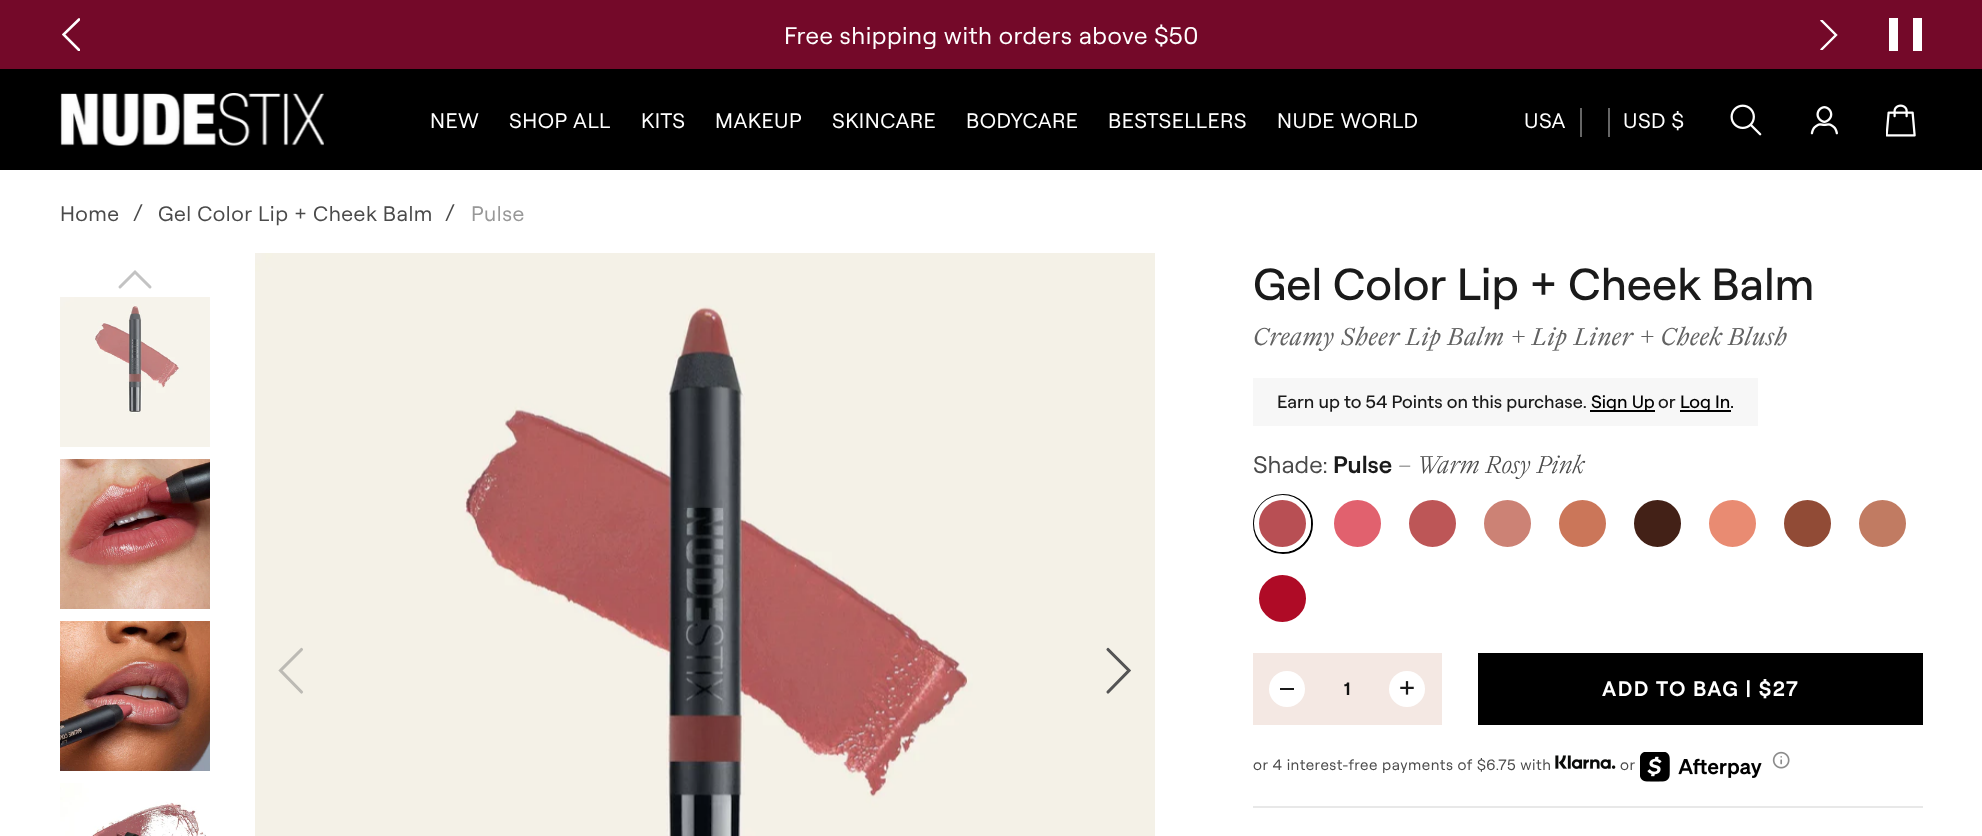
<svg xmlns="http://www.w3.org/2000/svg" width="1982" height="836">
<defs>
<clipPath id="clip1"><rect x="62" y="18" width="18" height="33"/></clipPath>
<clipPath id="clip2"><rect x="1820" y="20" width="18" height="30"/></clipPath>
</defs>
<rect width="100%" height="100%" fill="#fff"/>
<rect width="1982" height="69" fill="#740929"/>
<g clip-path="url(#clip1)">
<path d="M79 19.5l-15.5 15l15.5 15.5" fill="none" stroke="#fff" stroke-width="2.6" stroke-linecap="round"/>
</g>
<g clip-path="url(#clip2)">
<path d="M1821.5 20.5l14.5 14.5l-14.5 14.5" fill="none" stroke="#fff" stroke-width="2.4" stroke-linecap="round"/>
</g>
<rect x="1889" y="18" width="9" height="33" fill="#fff"/>
<rect x="1913" y="18" width="9" height="33" fill="#fff"/>
<text x="784" y="44" style="font-family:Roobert;font-size:24px;letter-spacing:0.5px;fill:#fff">Free shipping with orders above $50</text>
<rect y="69" width="1982" height="101" fill="#000"/>
<image x="60" y="93" width="264" height="53" href="media/1.png"/>
<text x="430" y="128" style="font-family:Roobert;font-size:21px;letter-spacing:0.5px;fill:#fff">NEW</text>
<text x="509" y="128" style="font-family:Roobert;font-size:21px;letter-spacing:0.5px;fill:#fff">SHOP ALL</text>
<text x="641" y="128" style="font-family:Roobert;font-size:21px;letter-spacing:0.5px;fill:#fff">KITS</text>
<text x="715" y="128" style="font-family:Roobert;font-size:21px;letter-spacing:0.5px;fill:#fff">MAKEUP</text>
<text x="832" y="128" style="font-family:Roobert;font-size:21px;letter-spacing:0.5px;fill:#fff">SKINCARE</text>
<text x="966" y="128" style="font-family:Roobert;font-size:21px;letter-spacing:0.5px;fill:#fff">BODYCARE</text>
<text x="1108" y="128" style="font-family:Roobert;font-size:21px;letter-spacing:0.5px;fill:#fff">BESTSELLERS</text>
<text x="1277" y="128" style="font-family:Roobert;font-size:21px;letter-spacing:0.5px;fill:#fff">NUDE WORLD</text>
<text x="1524" y="128" style="font-family:Roobert;font-size:21px;letter-spacing:0.5px;fill:#fff">USA</text>
<rect x="1580" y="108" width="2" height="29" fill="#666"/>
<rect x="1608" y="108" width="2" height="29" fill="#666"/>
<text x="1623" y="128" style="font-family:Roobert;font-size:21px;letter-spacing:0.5px;fill:#fff">USD $</text>
<image x="1730" y="104" width="32" height="32" href="media/2.png"/>
<image x="1810" y="106" width="28" height="29" href="media/3.png"/>
<image x="1886" y="104" width="30" height="33" href="media/4.png"/>
<text x="60" y="221" style="font-family:Roobert;font-size:21px;letter-spacing:0.5px;fill:#4a4a4a">Home</text>
<text x="133" y="221" style="font-family:Roobert;font-size:24px;letter-spacing:0.5px;fill:#4a4a4a">/</text>
<text x="158" y="221" style="font-family:Roobert;font-size:21px;letter-spacing:0.5px;fill:#4a4a4a">Gel Color Lip + Cheek Balm</text>
<text x="445" y="221" style="font-family:Roobert;font-size:24px;letter-spacing:0.5px;fill:#4a4a4a">/</text>
<text x="471" y="221" style="font-family:Roobert;font-size:21px;letter-spacing:0.5px;fill:#989898">Pulse</text>
<path d="M150 287l-15-15l-15 15" fill="none" stroke="#c3c3c3" stroke-width="3" stroke-linecap="round"/>
<image x="60" y="297" width="150" height="150" href="media/5.png"/>
<image x="60" y="459" width="150" height="150" href="media/6.png"/>
<image x="60" y="621" width="150" height="150" href="media/7.png"/>
<image x="60" y="783" width="146" height="53" href="media/8.png"/>
<image x="255" y="253" width="900" height="583" href="media/9.png"/>
<path d="M301.5 649.5l-21 21l21 21.5" fill="none" stroke="#bcbab4" stroke-width="3.1" stroke-linecap="round"/>
<path d="M1108 649.5l21 21l-21 21.5" fill="none" stroke="#545454" stroke-width="3.1" stroke-linecap="round"/>
<text x="1253" y="300" style="font-family:Roobert;font-size:45px;font-weight:500;fill:#1a1a1a">Gel Color Lip + Cheek Balm</text>
<text x="1253" y="345" style="font-family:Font;font-size:24px;font-style:italic;letter-spacing:0.5px;fill:#626262">Creamy Sheer Lip Balm + Lip Liner + Cheek Blush</text>
<rect x="1253" y="378" width="505" height="48" fill="#f7f7f7"/>
<text x="1277" y="408" style="font-family:Roobert;font-size:18px;font-weight:500;fill:#1a1a1a">Earn up to 54 Points on this purchase.</text>
<rect x="1590" y="410" width="65" height="2" fill="#000"/>
<text x="1591" y="408" style="font-family:Roobert;font-size:18px;font-weight:500;fill:#000">Sign Up</text>
<text x="1658" y="408" style="font-family:Roobert;font-size:18px;font-weight:500;fill:#1a1a1a">or</text>
<rect x="1680" y="410" width="51" height="2" fill="#000"/>
<text x="1680" y="408" style="font-family:Roobert;font-size:18px;font-weight:500;fill:#000">Log In</text>
<text x="1730" y="408" style="font-family:Roobert;font-size:18px;font-weight:500;fill:#1a1a1a">.</text>
<text x="1253" y="473" style="font-family:Roobert;font-size:24px;fill:#4a4a4a">Shade:</text>
<text x="1333" y="473" style="font-family:Roobert;font-size:24px;font-weight:600;fill:#1a1a1a">Pulse</text>
<text x="1398" y="473" style="font-family:Font;font-size:24px;font-weight:300;font-style:italic;fill:#4a4a4a">– Warm Rosy Pink</text>
<circle cx="1283" cy="524" r="29" fill="none" stroke="#000" stroke-width="2"/>
<circle cx="1282.5" cy="523.5" r="26" fill="#b84f54" stroke="#fff" stroke-width="5"/>
<circle cx="1357.5" cy="523.5" r="26" fill="#e1616e" stroke="#fff" stroke-width="5"/>
<circle cx="1432.5" cy="523.5" r="26" fill="#bd5657" stroke="#fff" stroke-width="5"/>
<circle cx="1507.5" cy="523.5" r="26" fill="#cc8275" stroke="#fff" stroke-width="5"/>
<circle cx="1582.5" cy="523.5" r="26" fill="#cb7659" stroke="#fff" stroke-width="5"/>
<circle cx="1657.5" cy="523.5" r="26" fill="#432117" stroke="#fff" stroke-width="5"/>
<circle cx="1732.5" cy="523.5" r="26" fill="#e98b72" stroke="#fff" stroke-width="5"/>
<circle cx="1807.5" cy="523.5" r="26" fill="#914b36" stroke="#fff" stroke-width="5"/>
<circle cx="1882.5" cy="523.5" r="26" fill="#c17b62" stroke="#fff" stroke-width="5"/>
<circle cx="1282.5" cy="598.5" r="26" fill="#af0b26" stroke="#fff" stroke-width="5"/>
<rect x="1253" y="653" width="189" height="72" fill="#f4e8e3"/>
<circle cx="1287" cy="689" r="18" fill="#fff"/>
<rect x="1280" y="688" width="14" height="2" fill="#1a1a1a"/>
<text x="1344" y="695" style="font-family:Roobert;font-size:18px;font-weight:600;letter-spacing:0.5px;fill:#121212">1</text>
<circle cx="1407" cy="689" r="18" fill="#fff"/>
<image x="1400" y="681" width="14" height="14" href="media/10.png"/>
<rect x="1478" y="653" width="445" height="72" fill="#000"/>
<text x="1602" y="696" style="font-family:Roobert;font-size:21px;font-weight:600;letter-spacing:1.5px;fill:#fff">ADD TO BAG | $27</text>
<text x="1253" y="770" style="font-family:Roobert;font-size:15px;letter-spacing:0.5px;fill:#4a4a4a">or 4 interest-free payments of $6.75 with</text>
<image x="1555" y="755" width="61" height="14" href="media/11.png"/>
<text x="1620" y="770" style="font-family:Roobert;font-size:15px;letter-spacing:0.5px;fill:#4a4a4a">or</text>
<image x="1640" y="752" width="122" height="30" href="media/12.png"/>
<image x="1772" y="751" width="18" height="18" href="media/13.png"/>
<rect x="1253" y="806" width="670" height="2" fill="#e8e8e8"/>
</svg>
